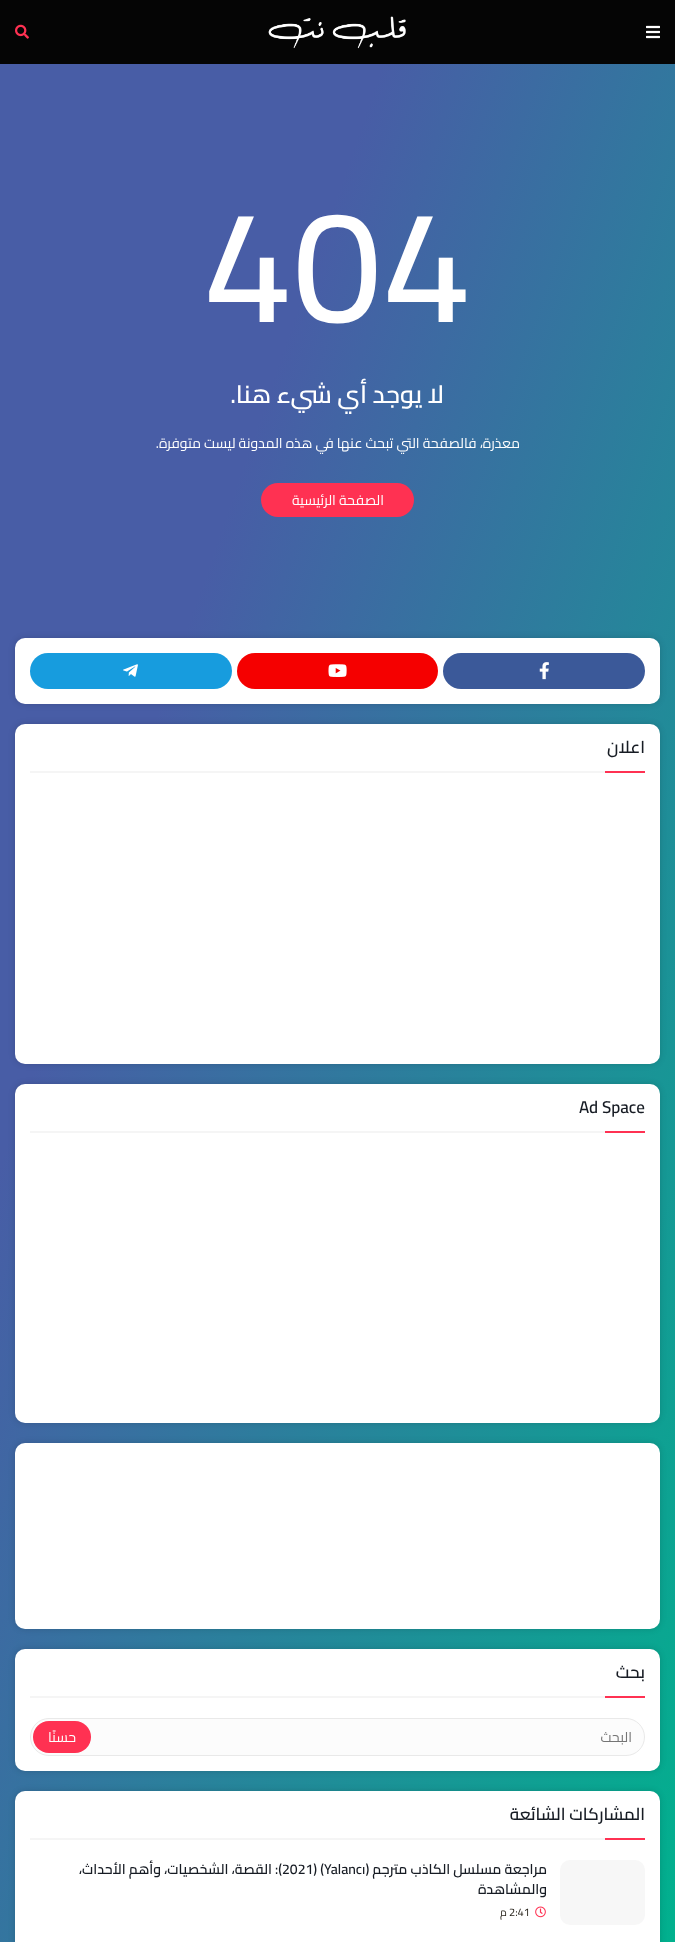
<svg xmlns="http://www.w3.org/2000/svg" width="675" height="1942">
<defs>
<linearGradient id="g1" gradientUnits="userSpaceOnUse" x1="-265" y1="762" x2="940" y2="1180"><stop offset="0.3" stop-color="#485da6"/><stop offset="1" stop-color="#01b18e"/></linearGradient>
</defs>
<rect width="100%" height="100%" fill="#fff"/>
<rect y="64" width="675" height="1878" fill="url(#g1)"/>
<rect width="675" height="64" fill="#050505"/>
<image x="646" y="25" width="14" height="14" href="media/1.png"/>
<image x="268" y="16" width="138" height="33" href="media/2.png"/>
<image x="15" y="24" width="14" height="15" href="media/3.png"/>
<text x="203" y="322" style="font-family:Cairo;font-size:160px;font-weight:500;fill:#fff">404</text>
<text x="444" y="403" style="font-family:Cairo;font-size:25px;font-weight:600;direction:rtl;fill:#fff">لا يوجد أي شيء هنا.</text>
<text x="520" y="448" style="font-family:Cairo;font-size:14px;direction:rtl;fill:#fff">معذرة، فالصفحة التي تبحث عنها في هذه المدونة ليست متوفرة.</text>
<rect x="261" y="483" width="153" height="34" rx="17" fill="#ff3152"/>
<text x="384" y="505" style="font-family:Cairo;font-size:14px;direction:rtl;fill:#fff">الصفحة الرئيسية</text>
<rect x="15" y="638" width="645" height="66" rx="10" fill="#00000026" filter="blur(3px)"/>
<rect x="15" y="638" width="645" height="66" rx="10" fill="#fff"/>
<rect x="443" y="653" width="202" height="36" rx="18" fill="#3b5999"/>
<image x="539" y="662" width="10" height="18" href="media/4.png"/>
<rect x="237" y="653" width="201" height="36" rx="18" fill="#f50000"/>
<image x="328" y="664" width="19" height="13" href="media/5.png"/>
<rect x="30" y="653" width="202" height="36" rx="18" fill="#179cde"/>
<image x="123" y="664" width="15" height="13" href="media/6.png"/>
<rect x="15" y="724" width="645" height="340" rx="10" fill="#00000026" filter="blur(3px)"/>
<rect x="15" y="724" width="645" height="340" rx="10" fill="#fff"/>
<rect x="30" y="771" width="575" height="2" fill="#f5f5f5"/>
<text x="645" y="753" style="font-family:Cairo;font-size:17px;font-weight:600;direction:rtl;fill:#171c24">اعلان</text>
<rect x="605" y="771" width="40" height="2" fill="#ff3152"/>
<rect x="15" y="1084" width="645" height="339" rx="10" fill="#00000026" filter="blur(3px)"/>
<rect x="15" y="1084" width="645" height="339" rx="10" fill="#fff"/>
<rect x="30" y="1131" width="575" height="2" fill="#f5f5f5"/>
<text x="579" y="1113" style="font-family:Cairo;font-size:17px;font-weight:600;fill:#171c24">Ad Space</text>
<rect x="605" y="1131" width="40" height="2" fill="#ff3152"/>
<rect x="15" y="1443" width="645" height="186" rx="10" fill="#00000026" filter="blur(3px)"/>
<rect x="15" y="1443" width="645" height="186" rx="10" fill="#fff"/>
<rect x="15" y="1649" width="645" height="122" rx="10" fill="#00000026" filter="blur(3px)"/>
<rect x="15" y="1649" width="645" height="122" rx="10" fill="#fff"/>
<rect x="30" y="1696" width="575" height="2" fill="#f5f5f5"/>
<text x="645" y="1678" style="font-family:Cairo;font-size:17px;font-weight:600;direction:rtl;fill:#171c24">بحث</text>
<rect x="605" y="1696" width="40" height="2" fill="#ff3152"/>
<rect x="30.5" y="1718.5" width="614" height="37" rx="18.5" fill="#fcfcfc" stroke="#e9e9e9"/>
<text x="632" y="1742" style="font-family:Cairo;font-size:14px;direction:rtl;fill:#757575">البحث</text>
<rect x="33" y="1721" width="58" height="32" rx="16" fill="#ff3152"/>
<text x="76" y="1742" style="font-family:Cairo;font-size:14px;direction:rtl;fill:#fff">حسنًا</text>
<rect x="15" y="1791" width="645" height="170" rx="10" fill="#00000026" filter="blur(3px)"/>
<rect x="15" y="1791" width="645" height="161" rx="10" fill="#fff"/>
<rect x="30" y="1838" width="575" height="2" fill="#f5f5f5"/>
<text x="645" y="1820" style="font-family:Cairo;font-size:17px;font-weight:600;direction:rtl;fill:#171c24">المشاركات الشائعة</text>
<rect x="605" y="1838" width="40" height="2" fill="#ff3152"/>
<rect x="560" y="1860" width="85" height="65" rx="10" fill="#9b9b9b14"/>
<text x="547" y="1874" style="font-family:Cairo;font-size:14px;font-weight:600;direction:rtl;fill:#171c24">مراجعة مسلسل الكاذب مترجم (</text>
<text x="282" y="1874" style="font-family:Cairo;font-size:14px;font-weight:600;fill:#171c24">2021) (Yalancı</text>
<text x="282" y="1874" style="font-family:Cairo;font-size:14px;font-weight:600;direction:rtl;fill:#171c24">): القصة، الشخصيات، وأهم الأحداث،</text>
<text x="547" y="1894" style="font-family:Cairo;font-size:14px;font-weight:600;direction:rtl;fill:#171c24">والمشاهدة</text>
<image x="535" y="1906" width="11" height="12" href="media/7.png"/>
<text x="509" y="1916" style="font-family:Cairo;font-size:11px;fill:#241f17">2:41</text>
<text x="507" y="1916" style="font-family:Cairo;font-size:11px;direction:rtl;fill:#241f17">م</text>
</svg>
